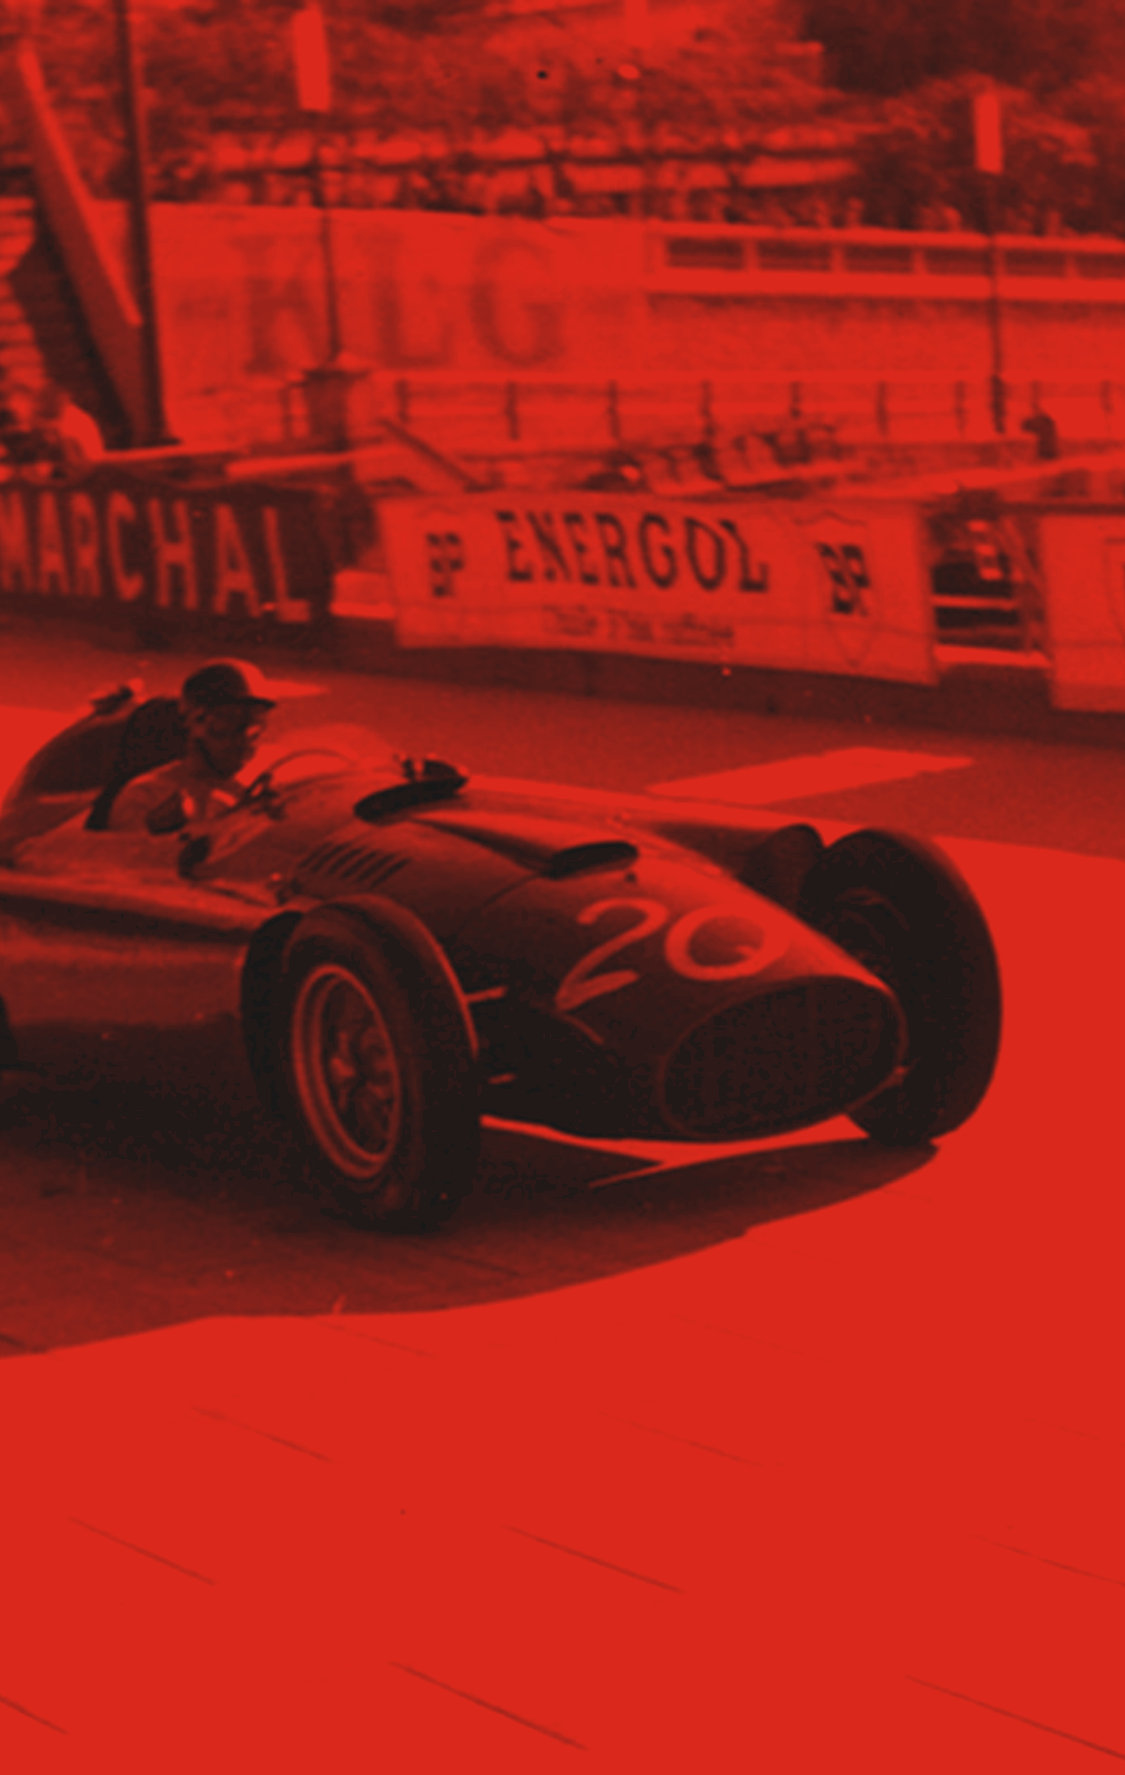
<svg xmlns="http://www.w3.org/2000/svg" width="1125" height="1775">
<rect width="100%" height="100%" fill="#fff"/>
<image x="0" y="0" width="1125" height="1775" href="media/1.png"/>
</svg>
